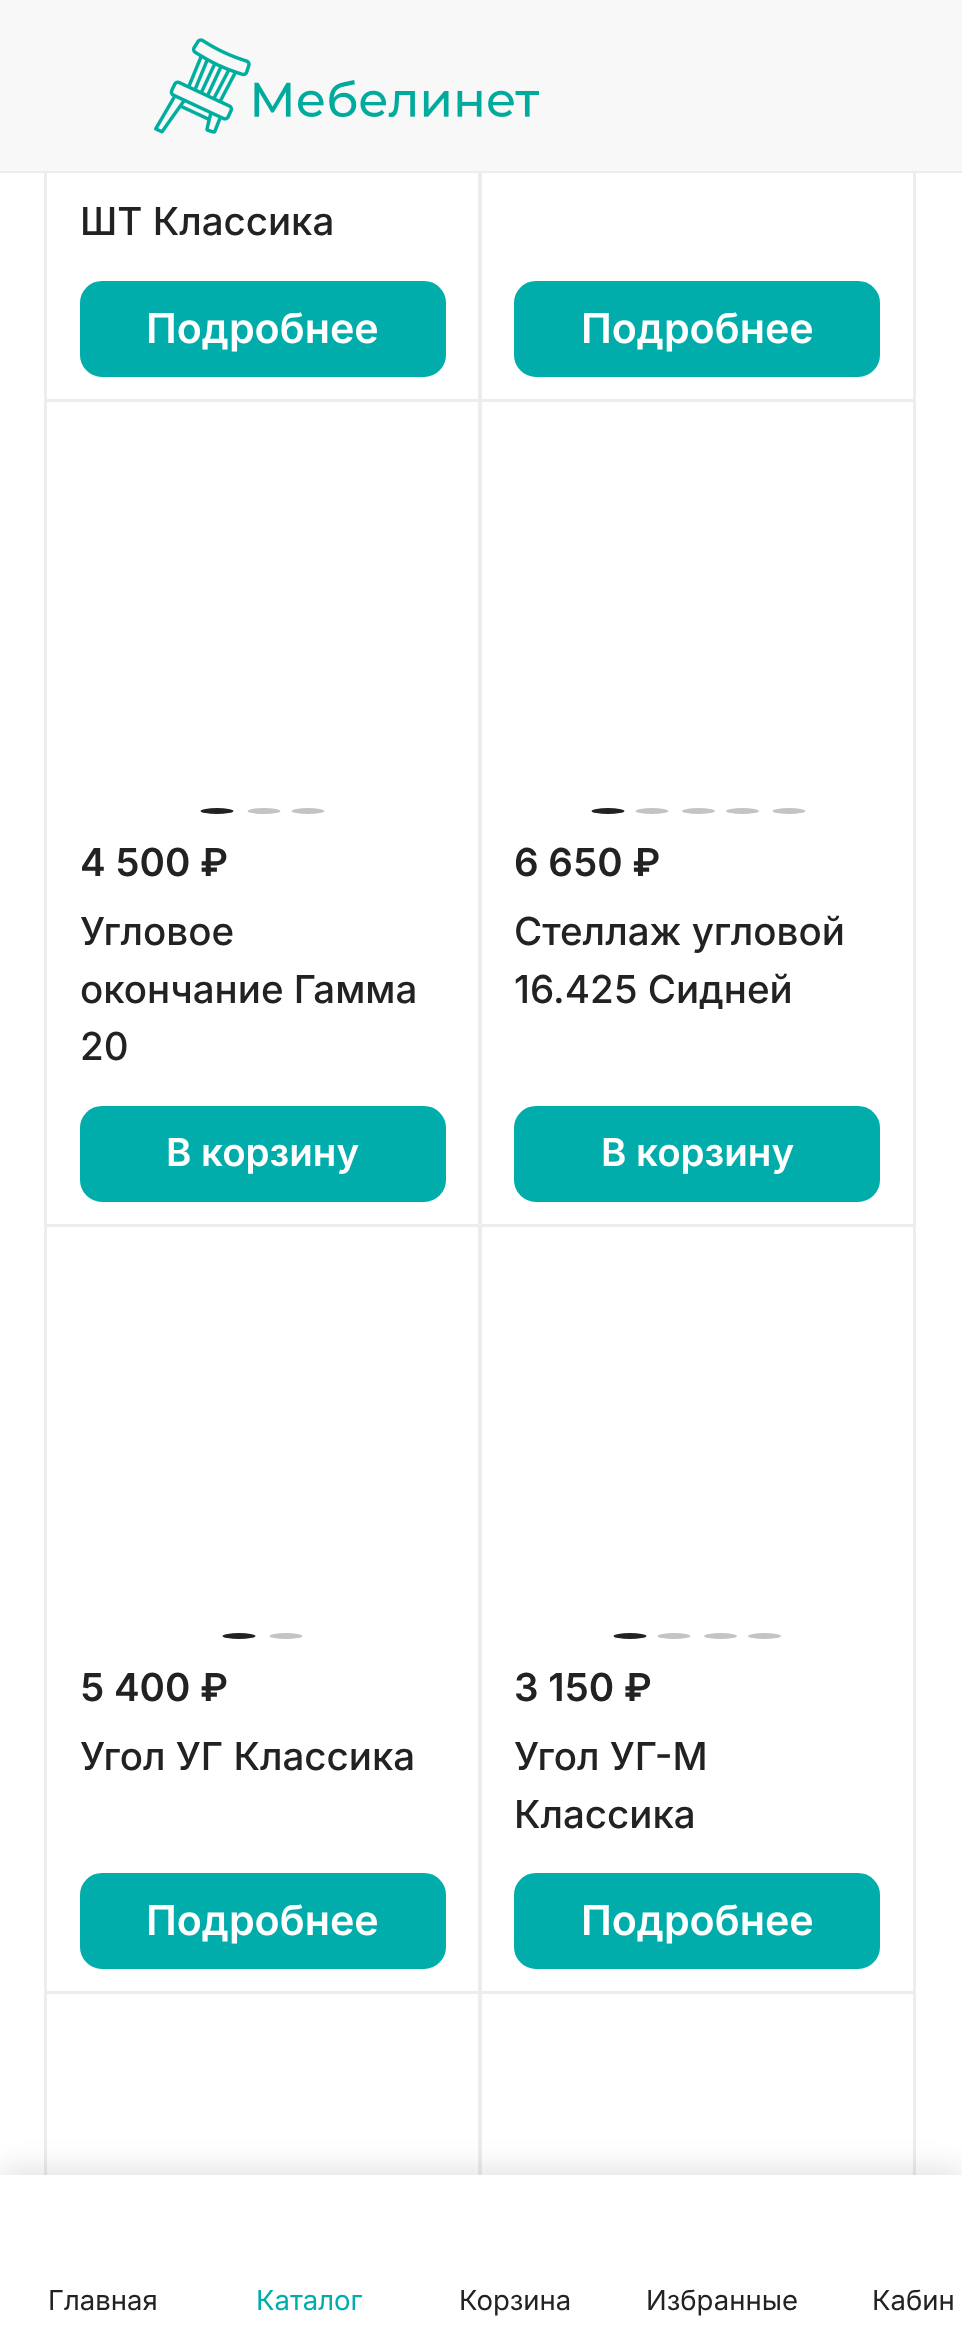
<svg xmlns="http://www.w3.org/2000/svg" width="962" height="2343">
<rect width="100%" height="100%" fill="#fff"/>
<rect x="45.5" y="-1.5" width="434" height="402" fill="none" stroke="#ededed" stroke-width="3"/>
<rect x="480.5" y="-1.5" width="434" height="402" fill="none" stroke="#ededed" stroke-width="3"/>
<path d="M0 170v3h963v-170h-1v167z" fill="#ededed"/>
<rect width="962" height="171" fill="#f8f8f8"/>
<image x="154" y="38" width="385" height="96" href="media/1.png"/>
<text x="80" y="235" style="font-family:Inter;font-size:38.5px;font-weight:500;fill:#222">ШТ Классика</text>
<rect x="81.5" y="282.5" width="363" height="93" rx="20.5" fill="#00adab" stroke="#00adab" stroke-width="3"/>
<text x="146" y="343" style="font-family:Inter;font-size:41.25px;font-weight:600;fill:#fff">Подробнее</text>
<rect x="515.5" y="282.5" width="363" height="93" rx="20.5" fill="#00adab" stroke="#00adab" stroke-width="3"/>
<text x="581" y="343" style="font-family:Inter;font-size:41.25px;font-weight:600;fill:#fff">Подробнее</text>
<rect x="45.5" y="400.5" width="434" height="825" fill="none" stroke="#ededed" stroke-width="3"/>
<ellipse cx="217" cy="811" rx="16.5" ry="3" fill="#222"/>
<ellipse cx="264" cy="811" rx="16.5" ry="3" fill="#c4c4c4"/>
<ellipse cx="308" cy="811" rx="16.5" ry="3" fill="#c4c4c4"/>
<text x="80" y="876" style="font-family:Inter;font-size:38.5px;font-weight:600;fill:#222">4 500 ₽</text>
<text x="80" y="945" style="font-family:Inter;font-size:38.5px;font-weight:500;fill:#222">Угловое</text>
<text x="80" y="1003" style="font-family:Inter;font-size:38.5px;font-weight:500;fill:#222">окончание Гамма</text>
<text x="80" y="1060" style="font-family:Inter;font-size:38.5px;font-weight:500;fill:#222">20</text>
<rect x="81.5" y="1107.5" width="363" height="93" rx="20.5" fill="#00adab" stroke="#00adab" stroke-width="3"/>
<text x="166" y="1166" style="font-family:Inter;font-size:38.5px;font-weight:600;fill:#fff">В корзину</text>
<rect x="480.5" y="400.5" width="434" height="825" fill="none" stroke="#ededed" stroke-width="3"/>
<ellipse cx="608" cy="811" rx="16.5" ry="3" fill="#222"/>
<ellipse cx="652" cy="811" rx="16.5" ry="3" fill="#c4c4c4"/>
<ellipse cx="698.5" cy="811" rx="16.5" ry="3" fill="#c4c4c4"/>
<ellipse cx="742.5" cy="811" rx="16.5" ry="3" fill="#c4c4c4"/>
<ellipse cx="789" cy="811" rx="16.5" ry="3" fill="#c4c4c4"/>
<text x="514" y="876" style="font-family:Inter;font-size:38.5px;font-weight:600;fill:#222">6 650 ₽</text>
<text x="514" y="945" style="font-family:Inter;font-size:38.5px;font-weight:500;fill:#222">Стеллаж угловой</text>
<text x="514" y="1003" style="font-family:Inter;font-size:38.5px;font-weight:500;fill:#222">16.425 Сидней</text>
<rect x="515.5" y="1107.5" width="363" height="93" rx="20.5" fill="#00adab" stroke="#00adab" stroke-width="3"/>
<text x="601" y="1166" style="font-family:Inter;font-size:38.5px;font-weight:600;fill:#fff">В корзину</text>
<rect x="45.5" y="1225.5" width="434" height="767" fill="none" stroke="#ededed" stroke-width="3"/>
<ellipse cx="239" cy="1636" rx="16.5" ry="3" fill="#222"/>
<ellipse cx="286" cy="1636" rx="16.5" ry="3" fill="#c4c4c4"/>
<text x="80" y="1701" style="font-family:Inter;font-size:38.5px;font-weight:600;fill:#222">5 400 ₽</text>
<text x="80" y="1770" style="font-family:Inter;font-size:38.5px;font-weight:500;fill:#222">Угол УГ Классика</text>
<rect x="81.5" y="1874.5" width="363" height="93" rx="20.5" fill="#00adab" stroke="#00adab" stroke-width="3"/>
<text x="146" y="1935" style="font-family:Inter;font-size:41.25px;font-weight:600;fill:#fff">Подробнее</text>
<rect x="480.5" y="1225.5" width="434" height="767" fill="none" stroke="#ededed" stroke-width="3"/>
<ellipse cx="630" cy="1636" rx="16.5" ry="3" fill="#222"/>
<ellipse cx="674" cy="1636" rx="16.5" ry="3" fill="#c4c4c4"/>
<ellipse cx="720.5" cy="1636" rx="16.5" ry="3" fill="#c4c4c4"/>
<ellipse cx="764.5" cy="1636" rx="16.5" ry="3" fill="#c4c4c4"/>
<text x="514" y="1701" style="font-family:Inter;font-size:38.5px;font-weight:600;fill:#222">3 150 ₽</text>
<text x="514" y="1770" style="font-family:Inter;font-size:38.5px;font-weight:500;fill:#222">Угол УГ-М</text>
<text x="514" y="1828" style="font-family:Inter;font-size:38.5px;font-weight:500;fill:#222">Классика</text>
<rect x="515.5" y="1874.5" width="363" height="93" rx="20.5" fill="#00adab" stroke="#00adab" stroke-width="3"/>
<text x="581" y="1935" style="font-family:Inter;font-size:41.25px;font-weight:600;fill:#fff">Подробнее</text>
<rect x="45.5" y="1992.5" width="434" height="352" fill="none" stroke="#ededed" stroke-width="3"/>
<rect x="480.5" y="1992.5" width="434" height="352" fill="none" stroke="#ededed" stroke-width="3"/>
<rect y="2167" width="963" height="168" fill="#0000001a" filter="blur(14px)"/>
<rect y="2175" width="962" height="168" fill="#fff"/>
<text x="48" y="2310" style="font-family:Inter;font-size:27.5px;fill:#222">Главная</text>
<text x="256" y="2310" style="font-family:Inter;font-size:27.5px;fill:#00adab">Каталог</text>
<text x="459" y="2310" style="font-family:Inter;font-size:27.5px;fill:#222">Корзина</text>
<text x="646" y="2310" style="font-family:Inter;font-size:27.5px;fill:#222">Избранные</text>
<text x="872" y="2310" style="font-family:Inter;font-size:27.5px;fill:#222">Кабин</text>
</svg>
